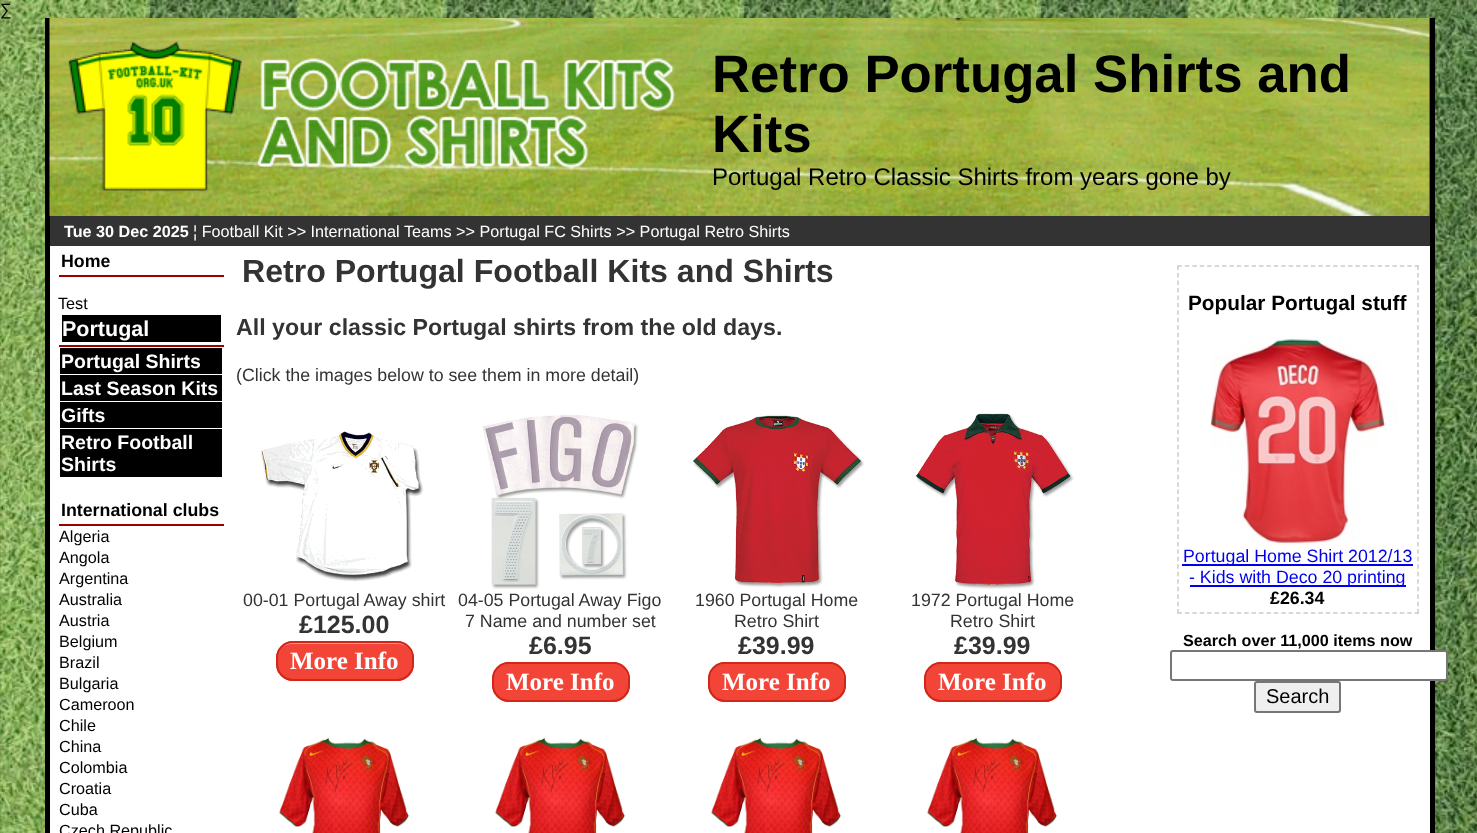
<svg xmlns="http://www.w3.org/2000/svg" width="1477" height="833">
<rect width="100%" height="100%" fill="#fff"/>
<image x="0" y="0" width="1477" height="833" href="media/1.png"/>
<text x="0" y="15" style="font-family:Liberation Sans;font-size:16.2px;fill:#000">∑</text>
<rect x="50" y="246" width="1380" height="587" fill="#fff"/>
<rect x="1430" y="18" width="5" height="815" fill="#000"/>
<rect x="45" y="18" width="5" height="815" fill="#000"/>
<rect x="1429" y="18" width="1" height="198" fill="#030"/>
<image x="49" y="18" width="1381" height="198" href="media/2.png"/>
<image x="68" y="41" width="608" height="150" href="media/3.png"/>
<text x="712" y="92" style="font-family:Liberation Sans;font-size:52.75px;font-weight:bold;fill:#000">Retro Portugal Shirts and</text>
<text x="712" y="152" style="font-family:Liberation Sans;font-size:52.75px;font-weight:bold;fill:#000">Kits</text>
<text x="712" y="185" style="font-family:Liberation Sans;font-size:24px;fill:#000">Portugal Retro Classic Shirts from years gone by</text>
<rect x="50" y="216" width="1380" height="30" fill="#333"/>
<text x="64" y="237" style="font-family:Liberation Sans;font-size:16.2px;font-weight:bold;fill:#fff">Tue 30 Dec 2025</text>
<text x="193" y="237" style="font-family:Liberation Sans;font-size:16.2px;fill:#fff">¦ Football Kit &gt;&gt; International Teams &gt;&gt; Portugal FC Shirts &gt;&gt; Portugal Retro Shirts</text>
<rect x="59" y="275" width="165" height="2" fill="#900"/>
<text x="61" y="267" style="font-family:Liberation Sans;font-size:17.8px;font-weight:bold;fill:#000">Home</text>
<text x="58" y="309" style="font-family:Liberation Sans;font-size:16.2px;fill:#000">Test</text>
<rect x="59" y="345" width="165" height="2" fill="#900"/>
<rect x="62" y="315" width="159" height="27" fill="#000"/>
<text x="62" y="336" style="font-family:Liberation Sans;font-size:21.5px;font-weight:bold;fill:#fff">Portugal</text>
<rect x="60" y="348" width="162" height="26" fill="#000"/>
<text x="61" y="368" style="font-family:Liberation Sans;font-size:19.5px;font-weight:bold;fill:#fff">Portugal Shirts</text>
<rect x="60" y="375" width="162" height="26" fill="#000"/>
<text x="61" y="395" style="font-family:Liberation Sans;font-size:19.5px;font-weight:bold;fill:#fff">Last Season Kits</text>
<rect x="60" y="402" width="162" height="26" fill="#000"/>
<text x="61" y="422" style="font-family:Liberation Sans;font-size:19.5px;font-weight:bold;fill:#fff">Gifts</text>
<rect x="60" y="429" width="162" height="48" fill="#000"/>
<text x="61" y="449" style="font-family:Liberation Sans;font-size:19.5px;font-weight:bold;fill:#fff">Retro Football</text>
<text x="61" y="471" style="font-family:Liberation Sans;font-size:19.5px;font-weight:bold;fill:#fff">Shirts</text>
<rect x="59" y="524" width="165" height="2" fill="#900"/>
<text x="61" y="516" style="font-family:Liberation Sans;font-size:17.8px;font-weight:bold;fill:#000">International clubs</text>
<text x="59" y="542" style="font-family:Liberation Sans;font-size:16.2px;fill:#000">Algeria</text>
<text x="59" y="563" style="font-family:Liberation Sans;font-size:16.2px;fill:#000">Angola</text>
<text x="59" y="584" style="font-family:Liberation Sans;font-size:16.2px;fill:#000">Argentina</text>
<text x="59" y="605" style="font-family:Liberation Sans;font-size:16.2px;fill:#000">Australia</text>
<text x="59" y="626" style="font-family:Liberation Sans;font-size:16.2px;fill:#000">Austria</text>
<text x="59" y="647" style="font-family:Liberation Sans;font-size:16.2px;fill:#000">Belgium</text>
<text x="59" y="668" style="font-family:Liberation Sans;font-size:16.2px;fill:#000">Brazil</text>
<text x="59" y="689" style="font-family:Liberation Sans;font-size:16.2px;fill:#000">Bulgaria</text>
<text x="59" y="710" style="font-family:Liberation Sans;font-size:16.2px;fill:#000">Cameroon</text>
<text x="59" y="731" style="font-family:Liberation Sans;font-size:16.2px;fill:#000">Chile</text>
<text x="59" y="752" style="font-family:Liberation Sans;font-size:16.2px;fill:#000">China</text>
<text x="59" y="773" style="font-family:Liberation Sans;font-size:16.2px;fill:#000">Colombia</text>
<text x="59" y="794" style="font-family:Liberation Sans;font-size:16.2px;fill:#000">Croatia</text>
<text x="59" y="815" style="font-family:Liberation Sans;font-size:16.2px;fill:#000">Cuba</text>
<text x="59" y="836" style="font-family:Liberation Sans;font-size:16.2px;fill:#000">Czech Republic</text>
<text x="242" y="282" style="font-family:Liberation Sans;font-size:32.1px;font-weight:bold;fill:#333">Retro Portugal Football Kits and Shirts</text>
<text x="236" y="335" style="font-family:Liberation Sans;font-size:23.2px;font-weight:bold;fill:#333">All your classic Portugal shirts from the old days.</text>
<text x="236" y="381" style="font-family:Liberation Sans;font-size:17.8px;fill:#333">(Click the images below to see them in more detail)</text>
<image x="261" y="431" width="162" height="151" href="media/4.png"/>
<text x="243" y="606" style="font-family:Liberation Sans;font-size:17.8px;fill:#333">00-01 Portugal Away shirt</text>
<text x="299" y="633" style="font-family:Liberation Sans;font-size:25px;font-weight:bold;fill:#333">£125.00</text>
<rect x="276" y="641" width="138" height="40" rx="17" fill="#f24537"/>
<path d="M292 644h106c8 0 14 6 14 14v8c0 3-1 6-3 9c4-4 4-9 4-15c0-21-16-18-33-18h-70c-13 0-32-3-32 16c0-8 6-14 14-14z" fill="#f5978e"/>
<rect x="277" y="642" width="136" height="38" rx="16" fill="none" stroke="#d02718" stroke-width="2"/>
<text x="290" y="669" style="font-family:Liberation Serif;font-size:25px;font-weight:bold;fill:#fff">More Info</text>
<image x="483" y="415" width="156" height="174" href="media/5.png"/>
<text x="458" y="606" style="font-family:Liberation Sans;font-size:17.8px;fill:#333">04-05 Portugal Away Figo</text>
<text x="465" y="627" style="font-family:Liberation Sans;font-size:17.8px;fill:#333">7 Name and number set</text>
<text x="529" y="654" style="font-family:Liberation Sans;font-size:25px;font-weight:bold;fill:#333">£6.95</text>
<rect x="492" y="662" width="138" height="40" rx="17" fill="#f24537"/>
<path d="M508 664h106c8 0 14 7 14 16v7c0 3-1 6-3 9c4-4 4-9 4-15c0-21-16-18-33-18h-70c-14 0-32-3-32 17c0-9 6-16 14-16z" fill="#f5978e"/>
<rect x="493" y="663" width="136" height="38" rx="16" fill="none" stroke="#d02718" stroke-width="2"/>
<text x="506" y="690" style="font-family:Liberation Serif;font-size:25px;font-weight:bold;fill:#fff">More Info</text>
<image x="693" y="415" width="172" height="173" href="media/6.png"/>
<text x="695" y="606" style="font-family:Liberation Sans;font-size:17.8px;fill:#333">1960 Portugal Home</text>
<text x="734" y="627" style="font-family:Liberation Sans;font-size:17.8px;fill:#333">Retro Shirt</text>
<text x="738" y="654" style="font-family:Liberation Sans;font-size:25px;font-weight:bold;fill:#333">£39.99</text>
<rect x="708" y="662" width="138" height="40" rx="17" fill="#f24537"/>
<path d="M724 664h106c8 0 14 7 14 16v7c0 3-1 6-3 9c4-4 4-9 4-15c0-21-16-18-33-18h-70c-14 0-32-3-32 17c0-9 6-16 14-16z" fill="#f5978e"/>
<rect x="709" y="663" width="136" height="38" rx="16" fill="none" stroke="#d02718" stroke-width="2"/>
<text x="722" y="690" style="font-family:Liberation Serif;font-size:25px;font-weight:bold;fill:#fff">More Info</text>
<image x="915" y="413" width="159" height="176" href="media/7.png"/>
<text x="911" y="606" style="font-family:Liberation Sans;font-size:17.8px;fill:#333">1972 Portugal Home</text>
<text x="950" y="627" style="font-family:Liberation Sans;font-size:17.8px;fill:#333">Retro Shirt</text>
<text x="954" y="654" style="font-family:Liberation Sans;font-size:25px;font-weight:bold;fill:#333">£39.99</text>
<rect x="924" y="662" width="138" height="40" rx="17" fill="#f24537"/>
<path d="M940 664h106c8 0 14 7 14 16v7c0 3-1 6-3 9c4-4 4-9 4-15c0-21-16-18-33-18h-70c-14 0-32-3-32 17c0-9 6-16 14-16z" fill="#f5978e"/>
<rect x="925" y="663" width="136" height="38" rx="16" fill="none" stroke="#d02718" stroke-width="2"/>
<text x="938" y="690" style="font-family:Liberation Serif;font-size:25px;font-weight:bold;fill:#fff">More Info</text>
<image x="279" y="737" width="130" height="96" href="media/8.png"/>
<image x="495" y="737" width="130" height="96" href="media/8.png"/>
<image x="711" y="737" width="130" height="96" href="media/8.png"/>
<image x="927" y="737" width="130" height="96" href="media/8.png"/>
<path d="M1177.5 266h241.5" fill="none" stroke="#ccc" stroke-width="1.5" stroke-dasharray="4.5 2.91"/>
<path d="M1418 265.5v348" fill="none" stroke="#ccc" stroke-width="1.5" stroke-dasharray="4.5 2.97"/>
<path d="M1177.5 613h241.5" fill="none" stroke="#ccc" stroke-width="1.5" stroke-dasharray="4.5 2.91"/>
<path d="M1178 265.5v348" fill="none" stroke="#ccc" stroke-width="1.5" stroke-dasharray="4.5 2.97"/>
<text x="1188" y="310" style="font-family:Liberation Sans;font-size:20.8px;font-weight:bold;fill:#000">Popular Portugal stuff</text>
<image x="1210" y="336" width="188" height="210" href="media/9.png"/>
<rect x="1182" y="564" width="231" height="2" fill="#00e"/>
<text x="1183" y="562" style="font-family:Liberation Sans;font-size:17.8px;fill:#00e">Portugal Home Shirt 2012/13</text>
<rect x="1190" y="585" width="216" height="2" fill="#00e"/>
<text x="1189" y="583" style="font-family:Liberation Sans;font-size:17.8px;fill:#00e">- Kids with Deco 20 printing</text>
<text x="1270" y="604" style="font-family:Liberation Sans;font-size:17.8px;font-weight:bold;fill:#000">£26.34</text>
<text x="1183" y="646" style="font-family:Liberation Sans;font-size:16.2px;font-weight:bold;fill:#000">Search over 11,000 items now</text>
<rect x="1171" y="651" width="276" height="29" rx="2" fill="#fff" stroke="#767676" stroke-width="2"/>
<rect x="1255" y="682" width="85" height="30" rx="2" fill="#efefef" stroke="#767676" stroke-width="2"/>
<text x="1266" y="703" style="font-family:Liberation Sans;font-size:20px;fill:#000">Search</text>
</svg>
